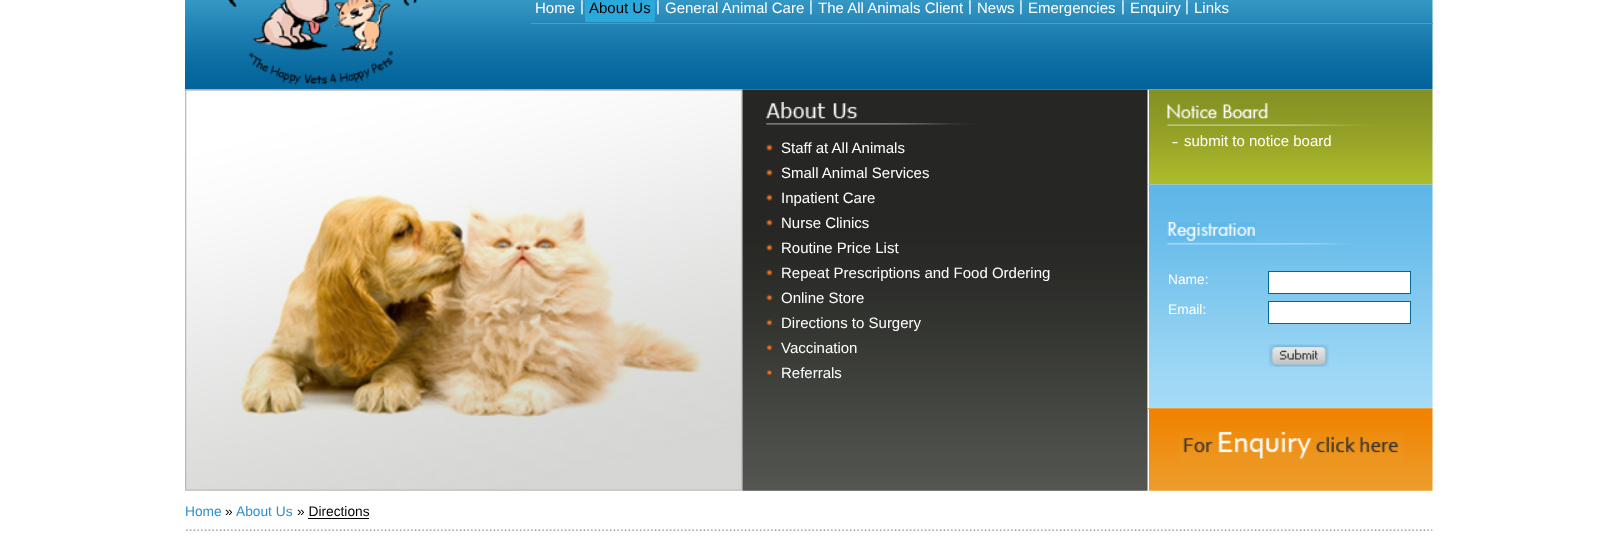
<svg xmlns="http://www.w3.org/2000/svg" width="1617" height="543">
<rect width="100%" height="100%" fill="#fff"/>
<image x="185" y="0" width="1248" height="90" href="media/1.png"/>
<image x="227" y="0" width="191" height="85" href="media/2.png"/>
<rect x="531" y="23" width="902" height="1" fill="#2ba9dc"/>
<text x="535" y="13" style="font-family:Liberation Sans;font-size:15px;fill:#fff">Home</text>
<text x="580" y="11" style="font-family:Liberation Sans;font-size:15px;fill:#fff">|</text>
<image x="585" y="0" width="70" height="22" href="media/3.png"/>
<image x="585" y="18" width="1" height="4" href="media/4.png"/>
<rect x="654" y="18" width="1" height="4" fill="#28a0d1"/>
<text x="589" y="13" style="font-family:Liberation Sans;font-size:15px;fill:#000">About Us</text>
<text x="656" y="11" style="font-family:Liberation Sans;font-size:15px;fill:#fff">|</text>
<text x="665" y="13" style="font-family:Liberation Sans;font-size:15px;fill:#fff">General Animal Care</text>
<text x="809" y="11" style="font-family:Liberation Sans;font-size:15px;fill:#fff">|</text>
<text x="818" y="13" style="font-family:Liberation Sans;font-size:15px;fill:#fff">The All Animals Client</text>
<text x="968" y="11" style="font-family:Liberation Sans;font-size:15px;fill:#fff">|</text>
<text x="977" y="13" style="font-family:Liberation Sans;font-size:15px;fill:#fff">News</text>
<text x="1019" y="11" style="font-family:Liberation Sans;font-size:15px;fill:#fff">|</text>
<text x="1028" y="13" style="font-family:Liberation Sans;font-size:15px;fill:#fff">Emergencies</text>
<text x="1121" y="11" style="font-family:Liberation Sans;font-size:15px;fill:#fff">|</text>
<text x="1130" y="13" style="font-family:Liberation Sans;font-size:15px;fill:#fff">Enquiry</text>
<text x="1185" y="11" style="font-family:Liberation Sans;font-size:15px;fill:#fff">|</text>
<text x="1194" y="13" style="font-family:Liberation Sans;font-size:15px;fill:#fff">Links</text>
<image x="185" y="89" width="558" height="402" href="media/5.png"/>
<image x="742" y="89" width="406" height="402" href="media/6.png"/>
<image x="766" y="123" width="210" height="2" href="media/7.png"/>
<image x="766" y="102" width="92" height="17" href="media/8.png"/>
<image x="766" y="144" width="7" height="7" href="media/9.png"/>
<text x="781" y="153" style="font-family:Liberation Sans;font-size:15px;fill:#fff">Staff at All Animals</text>
<image x="766" y="169" width="7" height="7" href="media/9.png"/>
<text x="781" y="178" style="font-family:Liberation Sans;font-size:15px;fill:#fff">Small Animal Services</text>
<image x="766" y="194" width="7" height="7" href="media/9.png"/>
<text x="781" y="203" style="font-family:Liberation Sans;font-size:15px;fill:#fff">Inpatient Care</text>
<image x="766" y="219" width="7" height="7" href="media/9.png"/>
<text x="781" y="228" style="font-family:Liberation Sans;font-size:15px;fill:#fff">Nurse Clinics</text>
<image x="766" y="244" width="7" height="7" href="media/10.png"/>
<text x="781" y="253" style="font-family:Liberation Sans;font-size:15px;fill:#fff">Routine Price List</text>
<image x="766" y="269" width="7" height="7" href="media/11.png"/>
<text x="781" y="278" style="font-family:Liberation Sans;font-size:15px;fill:#fff">Repeat Prescriptions and Food Ordering</text>
<image x="766" y="294" width="7" height="7" href="media/12.png"/>
<text x="781" y="303" style="font-family:Liberation Sans;font-size:15px;fill:#fff">Online Store</text>
<image x="766" y="319" width="7" height="7" href="media/13.png"/>
<text x="781" y="328" style="font-family:Liberation Sans;font-size:15px;fill:#fff">Directions to Surgery</text>
<image x="766" y="344" width="7" height="7" href="media/14.png"/>
<text x="781" y="353" style="font-family:Liberation Sans;font-size:15px;fill:#fff">Vaccination</text>
<image x="766" y="369" width="7" height="7" href="media/15.png"/>
<text x="781" y="378" style="font-family:Liberation Sans;font-size:15px;fill:#fff">Referrals</text>
<image x="1147" y="89" width="286" height="96" href="media/16.png"/>
<rect x="1148" y="90" width="1" height="95" fill="#fff"/>
<image x="1167" y="124" width="210" height="2" href="media/17.png"/>
<image x="1167" y="103" width="101" height="16" href="media/18.png"/>
<image x="1172" y="142" width="6" height="2" href="media/19.png"/>
<text x="1184" y="146" style="font-family:Liberation Sans;font-size:15px;fill:#fff">submit to notice board</text>
<image x="1147" y="184" width="286" height="225" href="media/20.png"/>
<rect x="1148" y="185" width="1" height="224" fill="#fff"/>
<image x="1167" y="243" width="186" height="2" href="media/21.png"/>
<image x="1167" y="222" width="88" height="19" href="media/22.png"/>
<text x="1168" y="284" style="font-family:Liberation Sans;font-size:13.75px;fill:#fff">Name:</text>
<rect x="1268.5" y="271.5" width="142" height="22" fill="#fff" stroke="#036992"/>
<text x="1168" y="314" style="font-family:Liberation Sans;font-size:13.75px;fill:#fff">Email:</text>
<rect x="1268.5" y="301.5" width="142" height="22" fill="#fff" stroke="#036992"/>
<image x="1268" y="344" width="61" height="23" href="media/23.png"/>
<image x="1147" y="408" width="286" height="83" href="media/24.png"/>
<rect x="1148" y="409" width="1" height="82" fill="#fff"/>
<image x="1179" y="431" width="225" height="31" href="media/25.png"/>
<image x="186" y="529" width="1247" height="2" href="media/26.png"/>
<text x="185" y="516" style="font-family:Liberation Sans;font-size:13.75px;fill:#2e90cb">Home</text>
<text x="225" y="516" style="font-family:Liberation Sans;font-size:13.75px;fill:#000">»</text>
<text x="236" y="516" style="font-family:Liberation Sans;font-size:13.75px;fill:#2e90cb">About Us</text>
<text x="297" y="516" style="font-family:Liberation Sans;font-size:13.75px;fill:#000">» Directions</text>
<rect x="308" y="518" width="61" height="1" fill="#000"/>
</svg>
